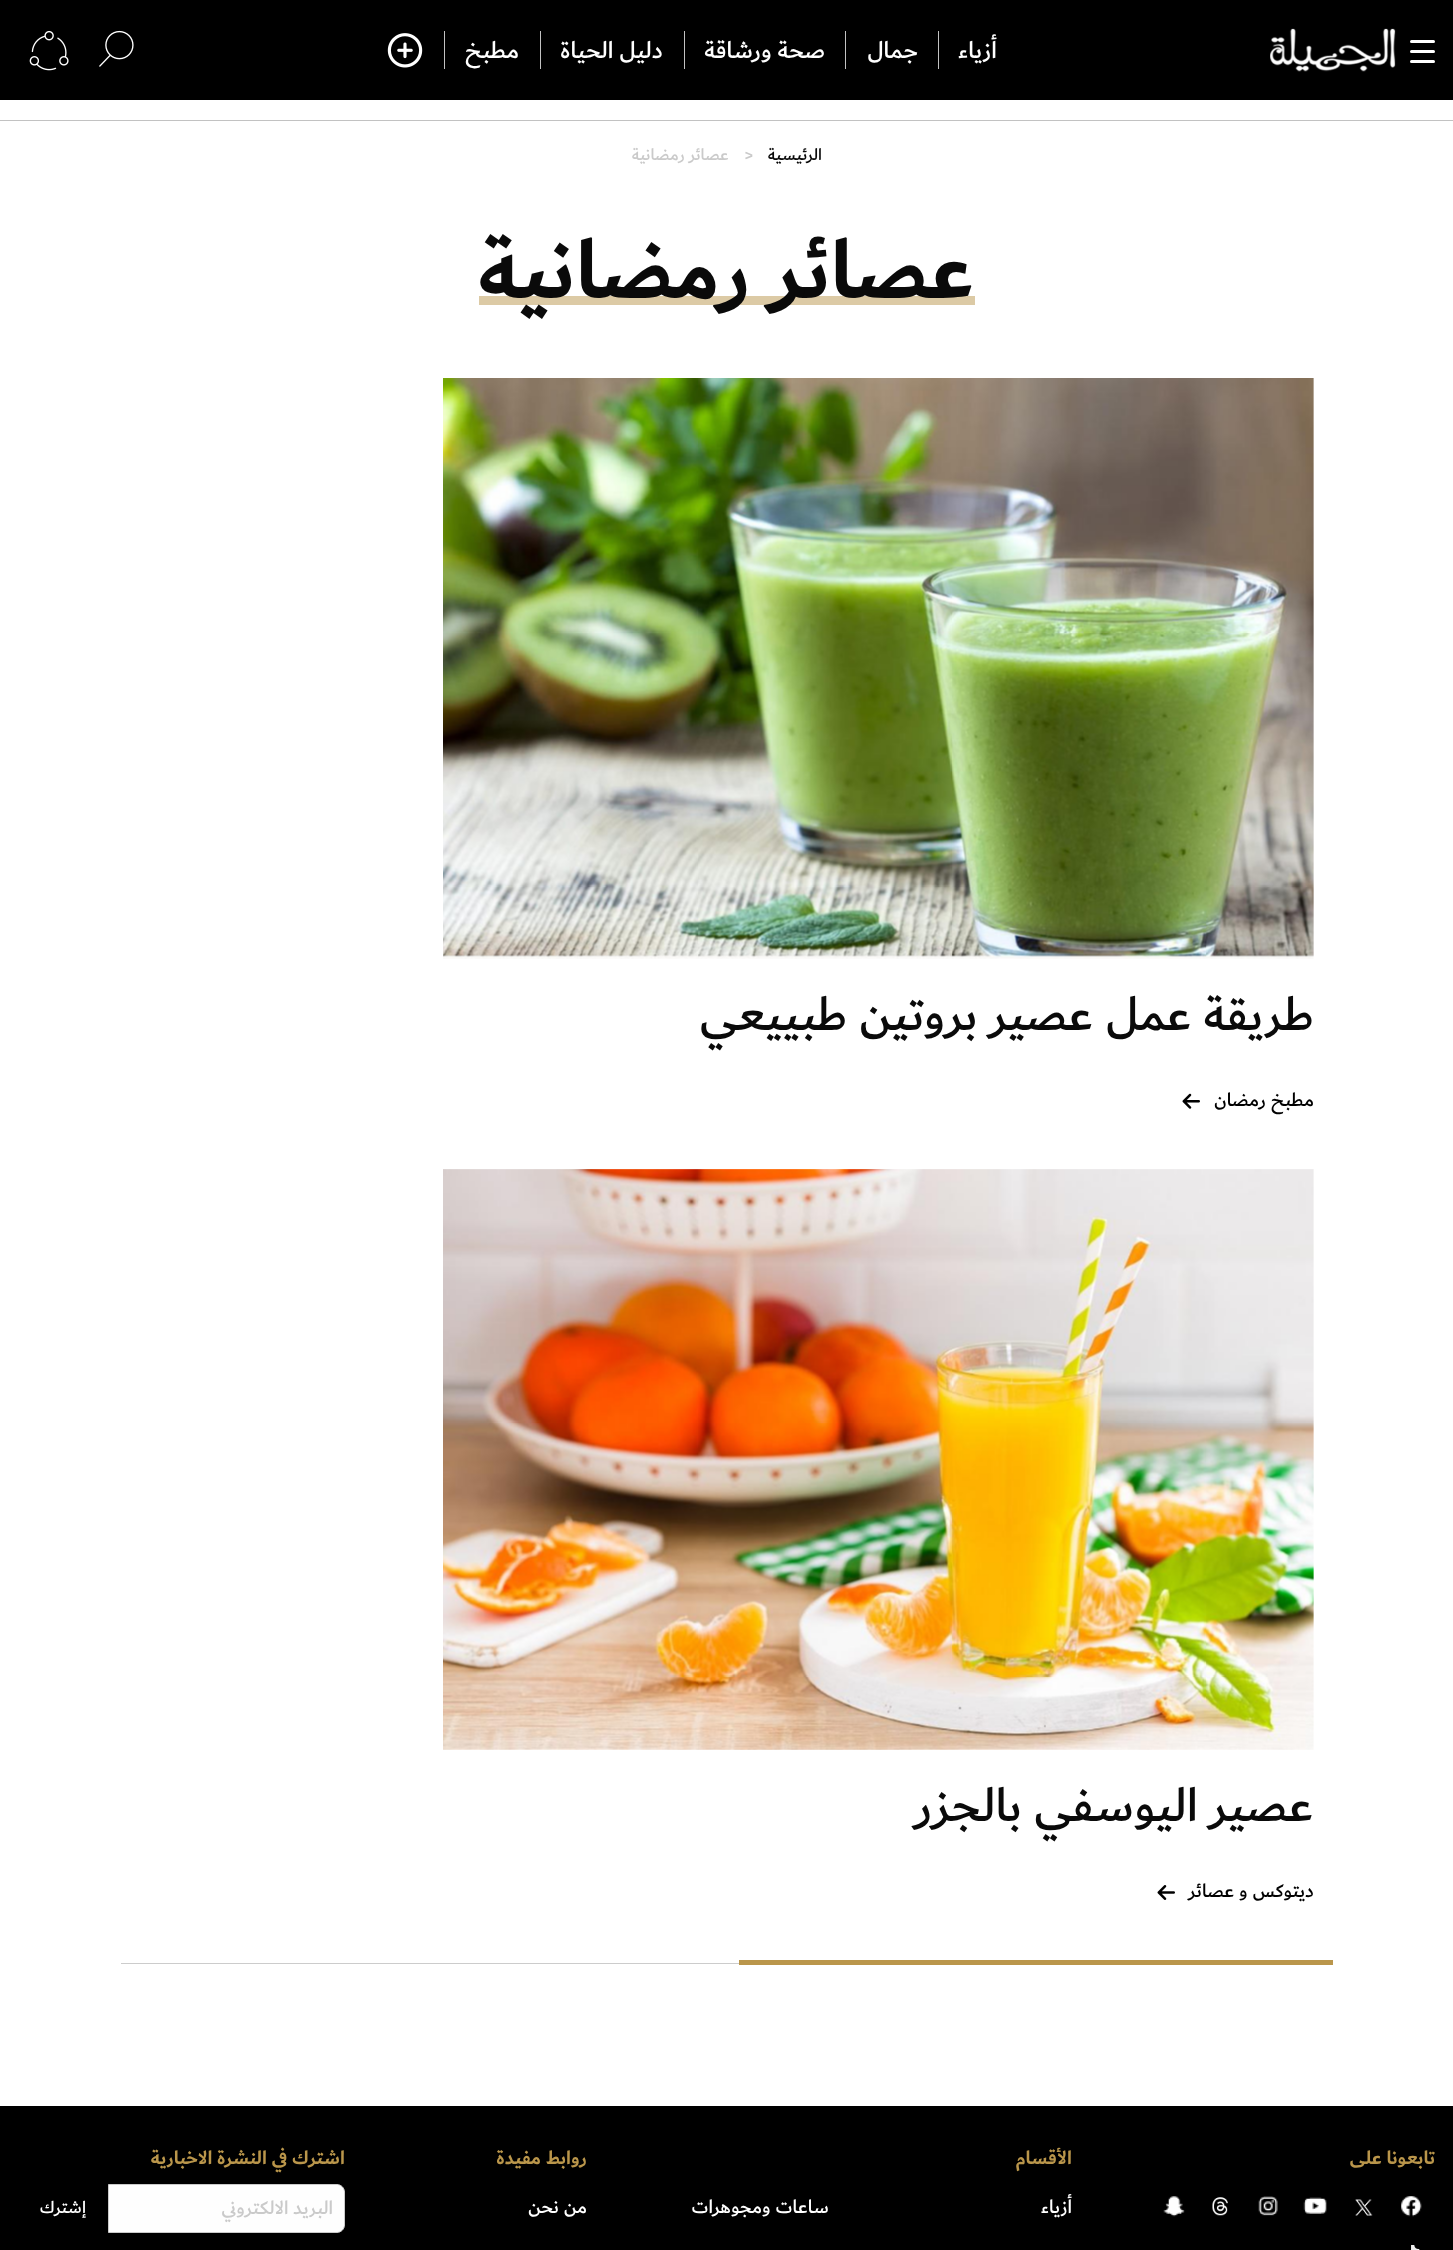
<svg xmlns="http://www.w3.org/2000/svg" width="1453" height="2250">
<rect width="100%" height="100%" fill="#fff"/>
<rect width="1453" height="100" fill="#000"/>
<rect x="1410" y="40" width="25" height="3" rx="1.5" fill="#fff"/>
<rect x="1410" y="50" width="25" height="3" rx="1.5" fill="#fff"/>
<rect x="1410" y="60" width="25" height="3" rx="1.5" fill="#fff"/>
<image x="1270" y="28" width="126" height="44" href="media/1.png"/>
<rect x="938" y="31" width="1" height="38" fill="#c2c2c2"/>
<text x="997" y="58" style="font-family:'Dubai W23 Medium';font-size:25px;font-weight:500;direction:rtl;fill:#fff">أزياء</text>
<rect x="845" y="31" width="1" height="38" fill="#c2c2c2"/>
<text x="918" y="58" style="font-family:'Dubai W23 Medium';font-size:25px;font-weight:500;direction:rtl;fill:#fff">جمال</text>
<rect x="684" y="31" width="1" height="38" fill="#c2c2c2"/>
<text x="825" y="58" style="font-family:'Dubai W23 Medium';font-size:25px;font-weight:500;direction:rtl;fill:#fff">صحة ورشاقة</text>
<rect x="540" y="31" width="1" height="38" fill="#c2c2c2"/>
<text x="663" y="58" style="font-family:'Dubai W23 Medium';font-size:25px;font-weight:500;direction:rtl;fill:#fff">دليل الحياة</text>
<rect x="444" y="31" width="1" height="38" fill="#c2c2c2"/>
<text x="519" y="58" style="font-family:'Dubai W23 Medium';font-size:25px;font-weight:500;direction:rtl;fill:#fff">مطبخ</text>
<image x="387" y="33" width="36" height="35" href="media/2.png"/>
<image x="99" y="30" width="35" height="37" href="media/3.png"/>
<image x="29" y="30" width="40" height="41" href="media/4.png"/>
<rect y="120" width="1453" height="1" fill="#c2c2c2"/>
<text x="822" y="160" style="font-family:'Dubai W23 Medium';font-size:17.5px;font-weight:500;direction:rtl;fill:#0a0a0a">الرئيسية</text>
<text x="744" y="160" style="font-family:'Dubai W23 Medium';font-size:17.5px;font-weight:500;fill:#cacaca">&gt;</text>
<text x="729" y="160" style="font-family:'Dubai W23 Medium';font-size:17.5px;font-weight:500;direction:rtl;fill:#cacaca">عصائر رمضانية</text>
<rect x="479" y="296" width="496" height="9" fill="#dccaa5"/>
<text x="975" y="298" style="font-family:'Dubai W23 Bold';font-size:87.5px;font-weight:bold;direction:rtl;fill:#0a0a0a">عصائر رمضانية</text>
<image x="443" y="378" width="871" height="581" href="media/5.png"/>
<text x="1314" y="1030" style="font-family:'Dubai W23 Medium';font-size:50px;font-weight:500;direction:rtl;fill:#0a0a0a">طريقة عمل عصير بروتين طبييعي</text>
<text x="1314" y="1106" style="font-family:'Dubai W23 Medium';font-size:20px;font-weight:500;direction:rtl;fill:#000">مطبخ رمضان</text>
<image x="1182" y="1093" width="18" height="16" href="media/6.png"/>
<image x="443" y="1169" width="871" height="581" href="media/7.png"/>
<text x="1314" y="1821" style="font-family:'Dubai W23 Medium';font-size:50px;font-weight:500;direction:rtl;fill:#0a0a0a">عصير اليوسفي بالجزر</text>
<text x="1314" y="1897" style="font-family:'Dubai W23 Medium';font-size:20px;font-weight:500;direction:rtl;fill:#000">ديتوكس و عصائر</text>
<image x="1157" y="1885" width="18" height="15" href="media/8.png"/>
<rect x="121" y="1963" width="618" height="1" fill="#ccc"/>
<rect x="739" y="1960" width="594" height="5" fill="#ba964b"/>
<rect y="2106" width="1453" height="144" fill="#000"/>
<text x="1435" y="2164" style="font-family:'Dubai W23 Bold';font-size:20px;font-weight:bold;direction:rtl;fill:#ba964b">تابعونا على</text>
<image x="1401" y="2196" width="21" height="21" href="media/9.png"/>
<image x="1355" y="2199" width="18" height="17" href="media/10.png"/>
<image x="1303" y="2197" width="24" height="17" href="media/11.png"/>
<image x="1258" y="2196" width="20" height="20" href="media/12.png"/>
<image x="1212" y="2197" width="16" height="19" href="media/13.png"/>
<image x="1163" y="2196" width="22" height="21" href="media/14.png"/>
<image x="1411" y="2245" width="9" height="5" href="media/15.png"/>
<text x="1072" y="2164" style="font-family:'Dubai W23 Bold';font-size:20px;font-weight:bold;direction:rtl;fill:#ba964b">الأقسام</text>
<text x="1072" y="2213" style="font-family:'Dubai W23 Medium';font-size:20px;font-weight:500;direction:rtl;fill:#fff">أزياء</text>
<text x="587" y="2164" style="font-family:'Dubai W23 Bold';font-size:20px;font-weight:bold;direction:rtl;fill:#ba964b">روابط مفيدة</text>
<text x="587" y="2213" style="font-family:'Dubai W23 Medium';font-size:20px;font-weight:500;direction:rtl;fill:#fff">من نحن</text>
<text x="345" y="2164" style="font-family:'Dubai W23 Bold';font-size:20px;font-weight:bold;direction:rtl;fill:#ba964b">اشترك في النشرة الاخبارية</text>
<path d="M108.5 2184.5h228.5c4 0 7.5 3.5 7.5 7.5v33c0 4-3.5 7.5-7.5 7.5h-228.5z" fill="#fefefe" stroke="#cacaca"/>
<text x="333" y="2214" style="font-family:'Dubai W23 Medium';font-size:20px;font-weight:500;direction:rtl;fill:#cacaca">البريد الالكتروني</text>
<text x="86" y="2213" style="font-family:'Dubai W23 Medium';font-size:18px;font-weight:500;direction:rtl;fill:#fff">إشترك</text>
<text x="829" y="2213" style="font-family:'Dubai W23 Medium';font-size:20px;font-weight:500;direction:rtl;fill:#fff">ساعات ومجوهرات</text>
</svg>
